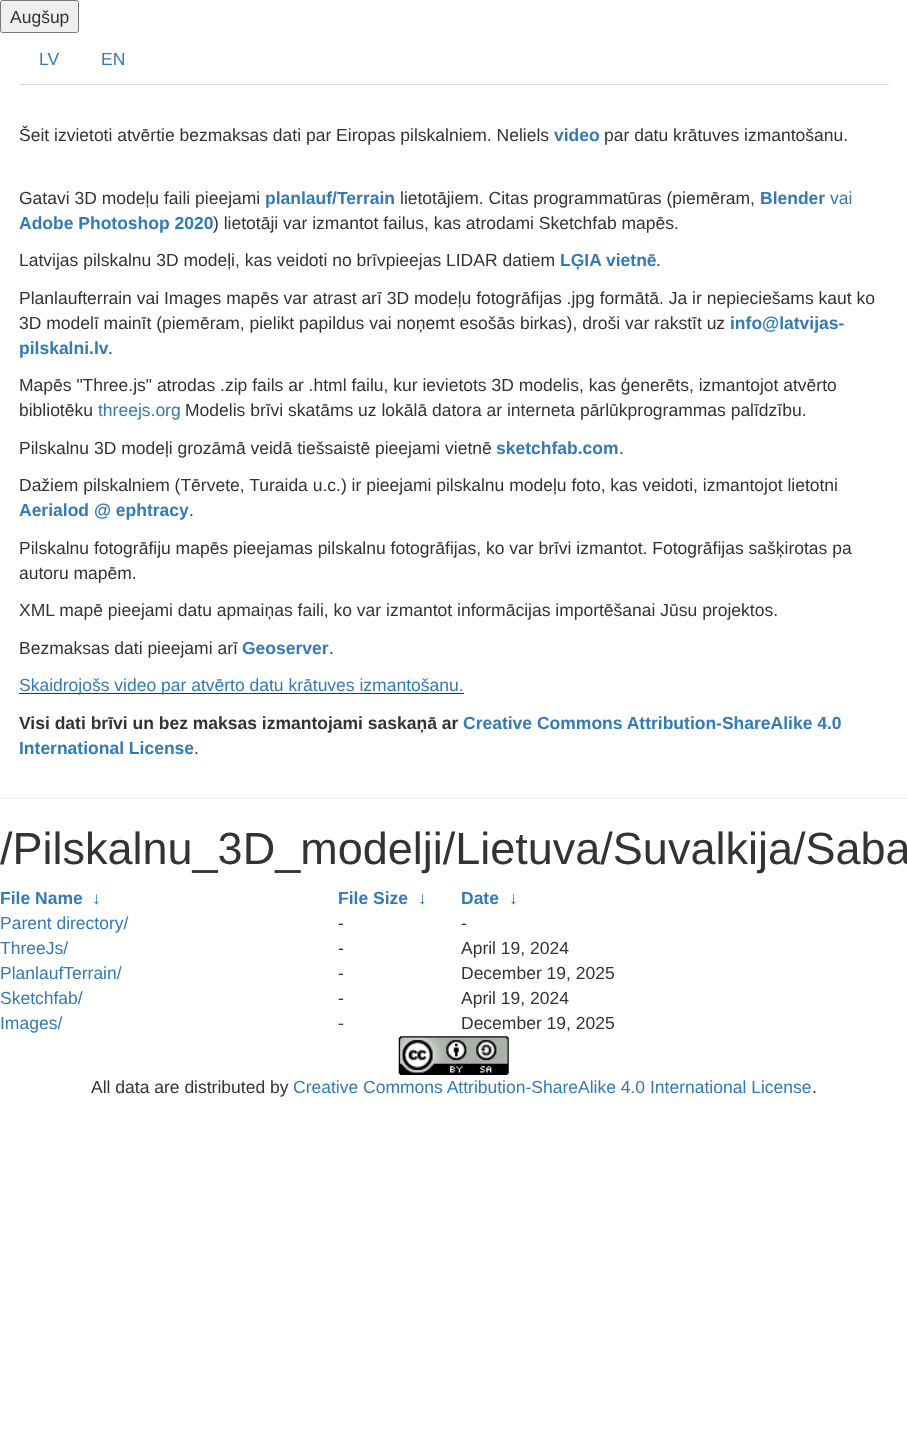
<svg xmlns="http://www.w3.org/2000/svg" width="907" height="1449">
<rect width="100%" height="100%" fill="#fff"/>
<rect x="0.5" y="0.5" width="78" height="32" rx="2" fill="#efefef" stroke="#767676"/>
<text x="10" y="23" style="font-family:Liberation Sans;font-size:17.5px;fill:#333">Augšup</text>
<rect x="19" y="84" width="870" height="1" fill="#ddd"/>
<text x="39" y="65" style="font-family:Liberation Sans;font-size:17.5px;fill:#337ab7">LV</text>
<text x="101" y="65" style="font-family:Liberation Sans;font-size:17.5px;fill:#337ab7">EN</text>
<text x="19" y="141" style="font-family:Liberation Sans;font-size:17.5px;fill:#333">Šeit izvietoti atvērtie bezmaksas dati par Eiropas pilskalniem. Neliels</text>
<text x="554" y="141" style="font-family:Liberation Sans;font-size:17.5px;font-weight:bold;fill:#337ab7">video</text>
<text x="604" y="141" style="font-family:Liberation Sans;font-size:17.5px;fill:#333">par datu krātuves izmantošanu.</text>
<text x="19" y="204" style="font-family:Liberation Sans;font-size:17.5px;fill:#333">Gatavi 3D modeļu faili pieejami</text>
<text x="265" y="204" style="font-family:Liberation Sans;font-size:17.5px;font-weight:bold;fill:#337ab7">planlauf/Terrain</text>
<text x="400" y="204" style="font-family:Liberation Sans;font-size:17.5px;fill:#333">lietotājiem. Citas programmatūras (piemēram,</text>
<text x="760" y="204" style="font-family:Liberation Sans;font-size:17.5px;font-weight:bold;fill:#337ab7">Blender</text>
<text x="830" y="204" style="font-family:Liberation Sans;font-size:17.5px;fill:#337ab7">vai</text>
<text x="19" y="229" style="font-family:Liberation Sans;font-size:17.5px;font-weight:bold;fill:#337ab7">Adobe Photoshop 2020</text>
<text x="213" y="229" style="font-family:Liberation Sans;font-size:17.5px;fill:#333">) lietotāji var izmantot failus, kas atrodami Sketchfab mapēs.</text>
<text x="19" y="266" style="font-family:Liberation Sans;font-size:17.5px;fill:#333">Latvijas pilskalnu 3D modeļi, kas veidoti no brīvpieejas LIDAR datiem</text>
<text x="560" y="266" style="font-family:Liberation Sans;font-size:17.5px;font-weight:bold;fill:#337ab7">LĢIA vietnē</text>
<text x="656" y="266" style="font-family:Liberation Sans;font-size:17.5px;fill:#333">.</text>
<text x="19" y="304" style="font-family:Liberation Sans;font-size:17.5px;fill:#333">Planlaufterrain vai Images mapēs var atrast arī 3D modeļu fotogrāfijas .jpg formātā. Ja ir nepieciešams kaut ko</text>
<text x="19" y="329" style="font-family:Liberation Sans;font-size:17.5px;fill:#333">3D modelī mainīt (piemēram, pielikt papildus vai noņemt esošās birkas), droši var rakstīt uz</text>
<text x="730" y="329" style="font-family:Liberation Sans;font-size:17.5px;font-weight:bold;fill:#337ab7">info@latvijas-</text>
<text x="19" y="354" style="font-family:Liberation Sans;font-size:17.5px;font-weight:bold;fill:#337ab7">pilskalni.lv</text>
<text x="108" y="354" style="font-family:Liberation Sans;font-size:17.5px;fill:#333">.</text>
<text x="19" y="391" style="font-family:Liberation Sans;font-size:17.5px;fill:#333">Mapēs "Three.js" atrodas .zip fails ar .html failu, kur ievietots 3D modelis, kas ģenerēts, izmantojot atvērto</text>
<text x="19" y="416" style="font-family:Liberation Sans;font-size:17.5px;fill:#333">bibliotēku</text>
<text x="98" y="416" style="font-family:Liberation Sans;font-size:17.5px;fill:#337ab7">threejs.org</text>
<text x="185" y="416" style="font-family:Liberation Sans;font-size:17.5px;fill:#333">Modelis brīvi skatāms uz lokālā datora ar interneta pārlūkprogrammas palīdzību.</text>
<text x="19" y="454" style="font-family:Liberation Sans;font-size:17.5px;fill:#333">Pilskalnu 3D modeļi grozāmā veidā tiešsaistē pieejami vietnē</text>
<text x="496" y="454" style="font-family:Liberation Sans;font-size:17.5px;font-weight:bold;fill:#337ab7">sketchfab.com</text>
<text x="619" y="454" style="font-family:Liberation Sans;font-size:17.5px;fill:#333">.</text>
<text x="19" y="491" style="font-family:Liberation Sans;font-size:17.5px;fill:#333">Dažiem pilskalniem (Tērvete, Turaida u.c.) ir pieejami pilskalnu modeļu foto, kas veidoti, izmantojot lietotni</text>
<text x="19" y="516" style="font-family:Liberation Sans;font-size:17.5px;font-weight:bold;fill:#337ab7">Aerialod @ ephtracy</text>
<text x="189" y="516" style="font-family:Liberation Sans;font-size:17.5px;fill:#333">.</text>
<text x="19" y="554" style="font-family:Liberation Sans;font-size:17.5px;fill:#333">Pilskalnu fotogrāfiju mapēs pieejamas pilskalnu fotogrāfijas, ko var brīvi izmantot. Fotogrāfijas sašķirotas pa</text>
<text x="19" y="579" style="font-family:Liberation Sans;font-size:17.5px;fill:#333">autoru mapēm.</text>
<text x="19" y="616" style="font-family:Liberation Sans;font-size:17.5px;fill:#333">XML mapē pieejami datu apmaiņas faili, ko var izmantot informācijas importēšanai Jūsu projektos.</text>
<text x="19" y="654" style="font-family:Liberation Sans;font-size:17.5px;fill:#333">Bezmaksas dati pieejami arī</text>
<text x="242" y="654" style="font-family:Liberation Sans;font-size:17.5px;font-weight:bold;fill:#337ab7">Geoserver</text>
<text x="329" y="654" style="font-family:Liberation Sans;font-size:17.5px;fill:#333">.</text>
<rect x="19" y="693" width="445" height="1" fill="#333"/>
<text x="19" y="691" style="font-family:Liberation Sans;font-size:17.5px;fill:#337ab7">Skaidrojošs video par atvērto datu krātuves izmantošanu.</text>
<text x="19" y="729" style="font-family:Liberation Sans;font-size:17.5px;font-weight:bold;fill:#333">Visi dati brīvi un bez maksas izmantojami saskaņā ar</text>
<text x="463" y="729" style="font-family:Liberation Sans;font-size:17.5px;font-weight:bold;fill:#337ab7">Creative Commons Attribution-ShareAlike 4.0</text>
<text x="19" y="754" style="font-family:Liberation Sans;font-size:17.5px;font-weight:bold;fill:#337ab7">International License</text>
<text x="194" y="754" style="font-family:Liberation Sans;font-size:17.5px;fill:#333">.</text>
<rect y="798" width="907" height="1" fill="#eee"/>
<text x="0" y="864" style="font-family:Liberation Sans;font-size:45px;fill:#333">/Pilskalnu_3D_modelji/Lietuva/Suvalkija/Saba</text>
<text x="0" y="904" style="font-family:Liberation Sans;font-size:17.5px;font-weight:bold;fill:#337ab7">File Name</text>
<text x="92" y="904" style="font-family:Liberation Sans;font-size:17.5px;font-weight:bold;fill:#337ab7">↓</text>
<text x="338" y="904" style="font-family:Liberation Sans;font-size:17.5px;font-weight:bold;fill:#337ab7">File Size</text>
<text x="418" y="904" style="font-family:Liberation Sans;font-size:17.5px;font-weight:bold;fill:#337ab7">↓</text>
<text x="461" y="904" style="font-family:Liberation Sans;font-size:17.5px;font-weight:bold;fill:#337ab7">Date</text>
<text x="509" y="904" style="font-family:Liberation Sans;font-size:17.5px;font-weight:bold;fill:#337ab7">↓</text>
<text x="0" y="929" style="font-family:Liberation Sans;font-size:17.5px;fill:#337ab7">Parent directory/</text>
<text x="338" y="929" style="font-family:Liberation Sans;font-size:17.5px;fill:#333">-</text>
<text x="461" y="929" style="font-family:Liberation Sans;font-size:17.5px;fill:#333">-</text>
<text x="0" y="954" style="font-family:Liberation Sans;font-size:17.5px;fill:#337ab7">ThreeJs/</text>
<text x="338" y="954" style="font-family:Liberation Sans;font-size:17.5px;fill:#333">-</text>
<text x="461" y="954" style="font-family:Liberation Sans;font-size:17.5px;fill:#333">April 19, 2024</text>
<text x="0" y="979" style="font-family:Liberation Sans;font-size:17.5px;fill:#337ab7">PlanlaufTerrain/</text>
<text x="338" y="979" style="font-family:Liberation Sans;font-size:17.5px;fill:#333">-</text>
<text x="461" y="979" style="font-family:Liberation Sans;font-size:17.5px;fill:#333">December 19, 2025</text>
<text x="0" y="1004" style="font-family:Liberation Sans;font-size:17.5px;fill:#337ab7">Sketchfab/</text>
<text x="338" y="1004" style="font-family:Liberation Sans;font-size:17.5px;fill:#333">-</text>
<text x="461" y="1004" style="font-family:Liberation Sans;font-size:17.5px;fill:#333">April 19, 2024</text>
<text x="0" y="1029" style="font-family:Liberation Sans;font-size:17.5px;fill:#337ab7">Images/</text>
<text x="338" y="1029" style="font-family:Liberation Sans;font-size:17.5px;fill:#333">-</text>
<text x="461" y="1029" style="font-family:Liberation Sans;font-size:17.5px;fill:#333">December 19, 2025</text>
<image x="398" y="1036" width="111" height="39" href="media/1.png"/>
<text x="91" y="1093" style="font-family:Liberation Sans;font-size:17.5px;fill:#333">All data are distributed by</text>
<text x="293" y="1093" style="font-family:Liberation Sans;font-size:17.5px;fill:#337ab7">Creative Commons Attribution-ShareAlike 4.0 International License</text>
<text x="812" y="1093" style="font-family:Liberation Sans;font-size:17.5px;fill:#333">.</text>
</svg>
